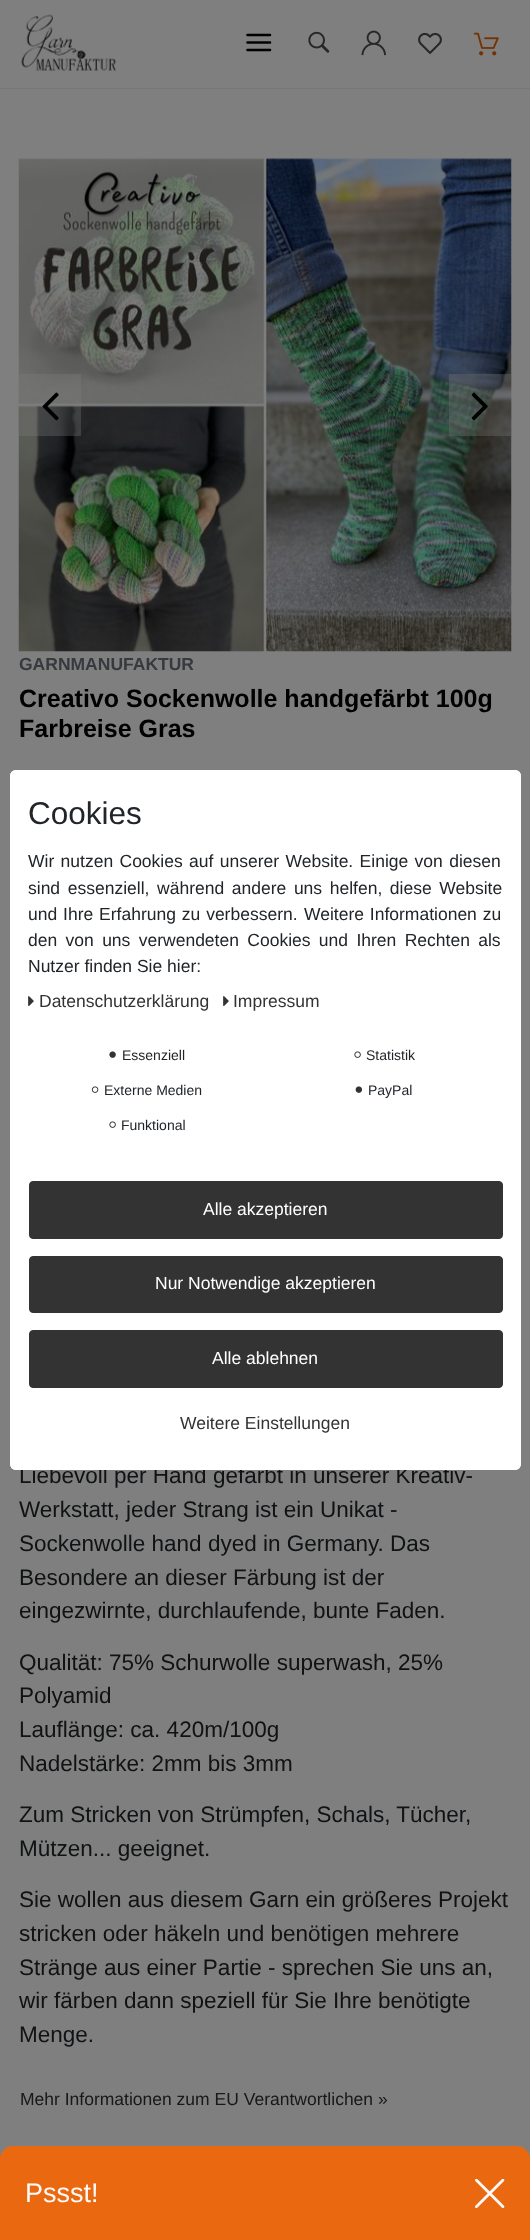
<svg xmlns="http://www.w3.org/2000/svg" width="530" height="2240">
<rect width="100%" height="100%" fill="#fff"/>
<rect y="88" width="530" height="1" fill="#efefef"/>
<image x="21" y="14" width="95" height="57" href="media/1.png"/>
<image x="246" y="33" width="26" height="19" href="media/2.png"/>
<image x="308" y="31" width="22" height="22" href="media/3.png"/>
<image x="361" y="30" width="25" height="26" href="media/4.png"/>
<image x="418" y="32" width="24" height="22" href="media/5.png"/>
<image x="473" y="32" width="26" height="24" href="media/6.png"/>
<image x="18" y="158" width="494" height="494" href="media/7.png"/>
<rect x="19" y="374" width="62" height="62" fill="#ffffff4d"/>
<image x="42" y="392" width="17" height="29" href="media/8.png"/>
<rect x="449" y="374" width="62" height="62" fill="#ffffff4d"/>
<image x="471" y="392" width="17" height="29" href="media/9.png"/>
<text x="19" y="670" style="font-family:Liberation Sans;font-size:17.5px;font-weight:bold;fill:#6c757d">GARNMANUFAKTUR</text>
<text x="19" y="707" style="font-family:Liberation Sans;font-size:25px;font-weight:bold;fill:#000">Creativo Sockenwolle handgefärbt 100g</text>
<text x="19" y="737" style="font-family:Liberation Sans;font-size:25px;font-weight:bold;fill:#000">Farbreise Gras</text>
<text x="19" y="1483" style="font-family:Liberation Sans;font-size:22.5px;fill:#212529">Liebevoll per Hand gefärbt in unserer Kreativ-</text>
<text x="19" y="1517" style="font-family:Liberation Sans;font-size:22.5px;fill:#212529">Werkstatt, jeder Strang ist ein Unikat -</text>
<text x="19" y="1551" style="font-family:Liberation Sans;font-size:22.5px;fill:#212529">Sockenwolle hand dyed in Germany. Das</text>
<text x="19" y="1585" style="font-family:Liberation Sans;font-size:22.5px;fill:#212529">Besondere an dieser Färbung ist der</text>
<text x="19" y="1618" style="font-family:Liberation Sans;font-size:22.5px;fill:#212529">eingezwirnte, durchlaufende, bunte Faden.</text>
<text x="19" y="1670" style="font-family:Liberation Sans;font-size:22.5px;fill:#212529">Qualität: 75% Schurwolle superwash, 25%</text>
<text x="19" y="1703" style="font-family:Liberation Sans;font-size:22.5px;fill:#212529">Polyamid</text>
<text x="19" y="1737" style="font-family:Liberation Sans;font-size:22.5px;fill:#212529">Lauflänge: ca. 420m/100g</text>
<text x="19" y="1771" style="font-family:Liberation Sans;font-size:22.5px;fill:#212529">Nadelstärke: 2mm bis 3mm</text>
<text x="19" y="1822" style="font-family:Liberation Sans;font-size:22.5px;fill:#212529">Zum Stricken von Strümpfen, Schals, Tücher,</text>
<text x="19" y="1856" style="font-family:Liberation Sans;font-size:22.5px;fill:#212529">Mützen... geeignet.</text>
<text x="19" y="1907" style="font-family:Liberation Sans;font-size:22.5px;fill:#212529">Sie wollen aus diesem Garn ein größeres Projekt</text>
<text x="19" y="1941" style="font-family:Liberation Sans;font-size:22.5px;fill:#212529">stricken oder häkeln und benötigen mehrere</text>
<text x="19" y="1975" style="font-family:Liberation Sans;font-size:22.5px;fill:#212529">Stränge aus einer Partie - sprechen Sie uns an,</text>
<text x="19" y="2008" style="font-family:Liberation Sans;font-size:22.5px;fill:#212529">wir färben dann speziell für Sie Ihre benötigte</text>
<text x="19" y="2042" style="font-family:Liberation Sans;font-size:22.5px;fill:#212529">Menge.</text>
<text x="20" y="2105" style="font-family:Liberation Sans;font-size:17.5px;fill:#333">Mehr Informationen zum EU Verantwortlichen »</text>
<rect x="-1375" y="-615" width="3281" height="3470" rx="1391" fill="none" stroke="#00000080" stroke-width="2770"/>
<rect x="10" y="770" width="511" height="700" rx="6" fill="#fff"/>
<text x="28" y="824" style="font-family:Liberation Sans;font-size:31.5px;fill:#212529">Cookies</text>
<text x="28" y="867" word-spacing="1.5" style="font-family:Liberation Sans;font-size:17.5px;fill:#212529">Wir nutzen Cookies auf unserer Website. Einige von diesen</text>
<text x="28" y="894" word-spacing="2.75" style="font-family:Liberation Sans;font-size:17.5px;fill:#212529">sind essenziell, während andere uns helfen, diese Website</text>
<text x="28" y="920" word-spacing="1" style="font-family:Liberation Sans;font-size:17.5px;fill:#212529">und Ihre Erfahrung zu verbessern.</text>
<text x="304" y="920" word-spacing="1" style="font-family:Liberation Sans;font-size:17.5px;fill:#212529">Weitere Informationen zu</text>
<text x="28" y="946" word-spacing="3.5" style="font-family:Liberation Sans;font-size:17.5px;fill:#212529">den von uns verwendeten Cookies und Ihren Rechten als</text>
<text x="28" y="972" style="font-family:Liberation Sans;font-size:17.5px;fill:#212529">Nutzer finden Sie hier:</text>
<image x="28" y="996" width="6" height="10" href="media/10.png"/>
<text x="39" y="1007" style="font-family:Liberation Sans;font-size:17.5px;fill:#333">Datenschutzerklärung</text>
<image x="223" y="996" width="6" height="10" href="media/10.png"/>
<text x="233" y="1007" style="font-family:Liberation Sans;font-size:17.5px;fill:#333">Impressum</text>
<image x="109" y="1051" width="7" height="7" href="media/11.png"/>
<text x="122" y="1060" style="font-family:Liberation Sans;font-size:14px;fill:#212529">Essenziell</text>
<image x="354" y="1051" width="7" height="7" href="media/12.png"/>
<text x="366" y="1060" style="font-family:Liberation Sans;font-size:14px;fill:#212529">Statistik</text>
<image x="91" y="1086" width="8" height="7" href="media/13.png"/>
<text x="104" y="1095" style="font-family:Liberation Sans;font-size:14px;fill:#212529">Externe Medien</text>
<image x="355" y="1086" width="8" height="7" href="media/14.png"/>
<text x="368" y="1095" style="font-family:Liberation Sans;font-size:14px;fill:#212529">PayPal</text>
<image x="109" y="1121" width="7" height="7" href="media/12.png"/>
<text x="121" y="1130" style="font-family:Liberation Sans;font-size:14px;fill:#212529">Funktional</text>
<rect x="29.5" y="1181.5" width="473" height="57" rx="3.5" fill="#333" stroke="#333"/>
<text x="203" y="1215" style="font-family:Liberation Sans;font-size:17.5px;fill:#fff">Alle akzeptieren</text>
<rect x="29.5" y="1256.5" width="473" height="56" rx="3.5" fill="#333" stroke="#333"/>
<text x="155" y="1289" style="font-family:Liberation Sans;font-size:17.5px;fill:#fff">Nur Notwendige akzeptieren</text>
<rect x="29.5" y="1330.5" width="473" height="57" rx="3.5" fill="#333" stroke="#333"/>
<text x="212" y="1364" style="font-family:Liberation Sans;font-size:17.5px;fill:#fff">Alle ablehnen</text>
<text x="180" y="1429" style="font-family:Liberation Sans;font-size:17.5px;fill:#333">Weitere Einstellungen</text>
<path d="M13 2146h504c7 0 13 6 13 13v81h-530v-81c0-7 6-13 13-13z" fill="#ea6910"/>
<text x="25" y="2202" style="font-family:Liberation Sans;font-size:27px;fill:#fff9f9">Pssst!</text>
<image x="475" y="2179" width="30" height="29" href="media/15.png"/>
</svg>
